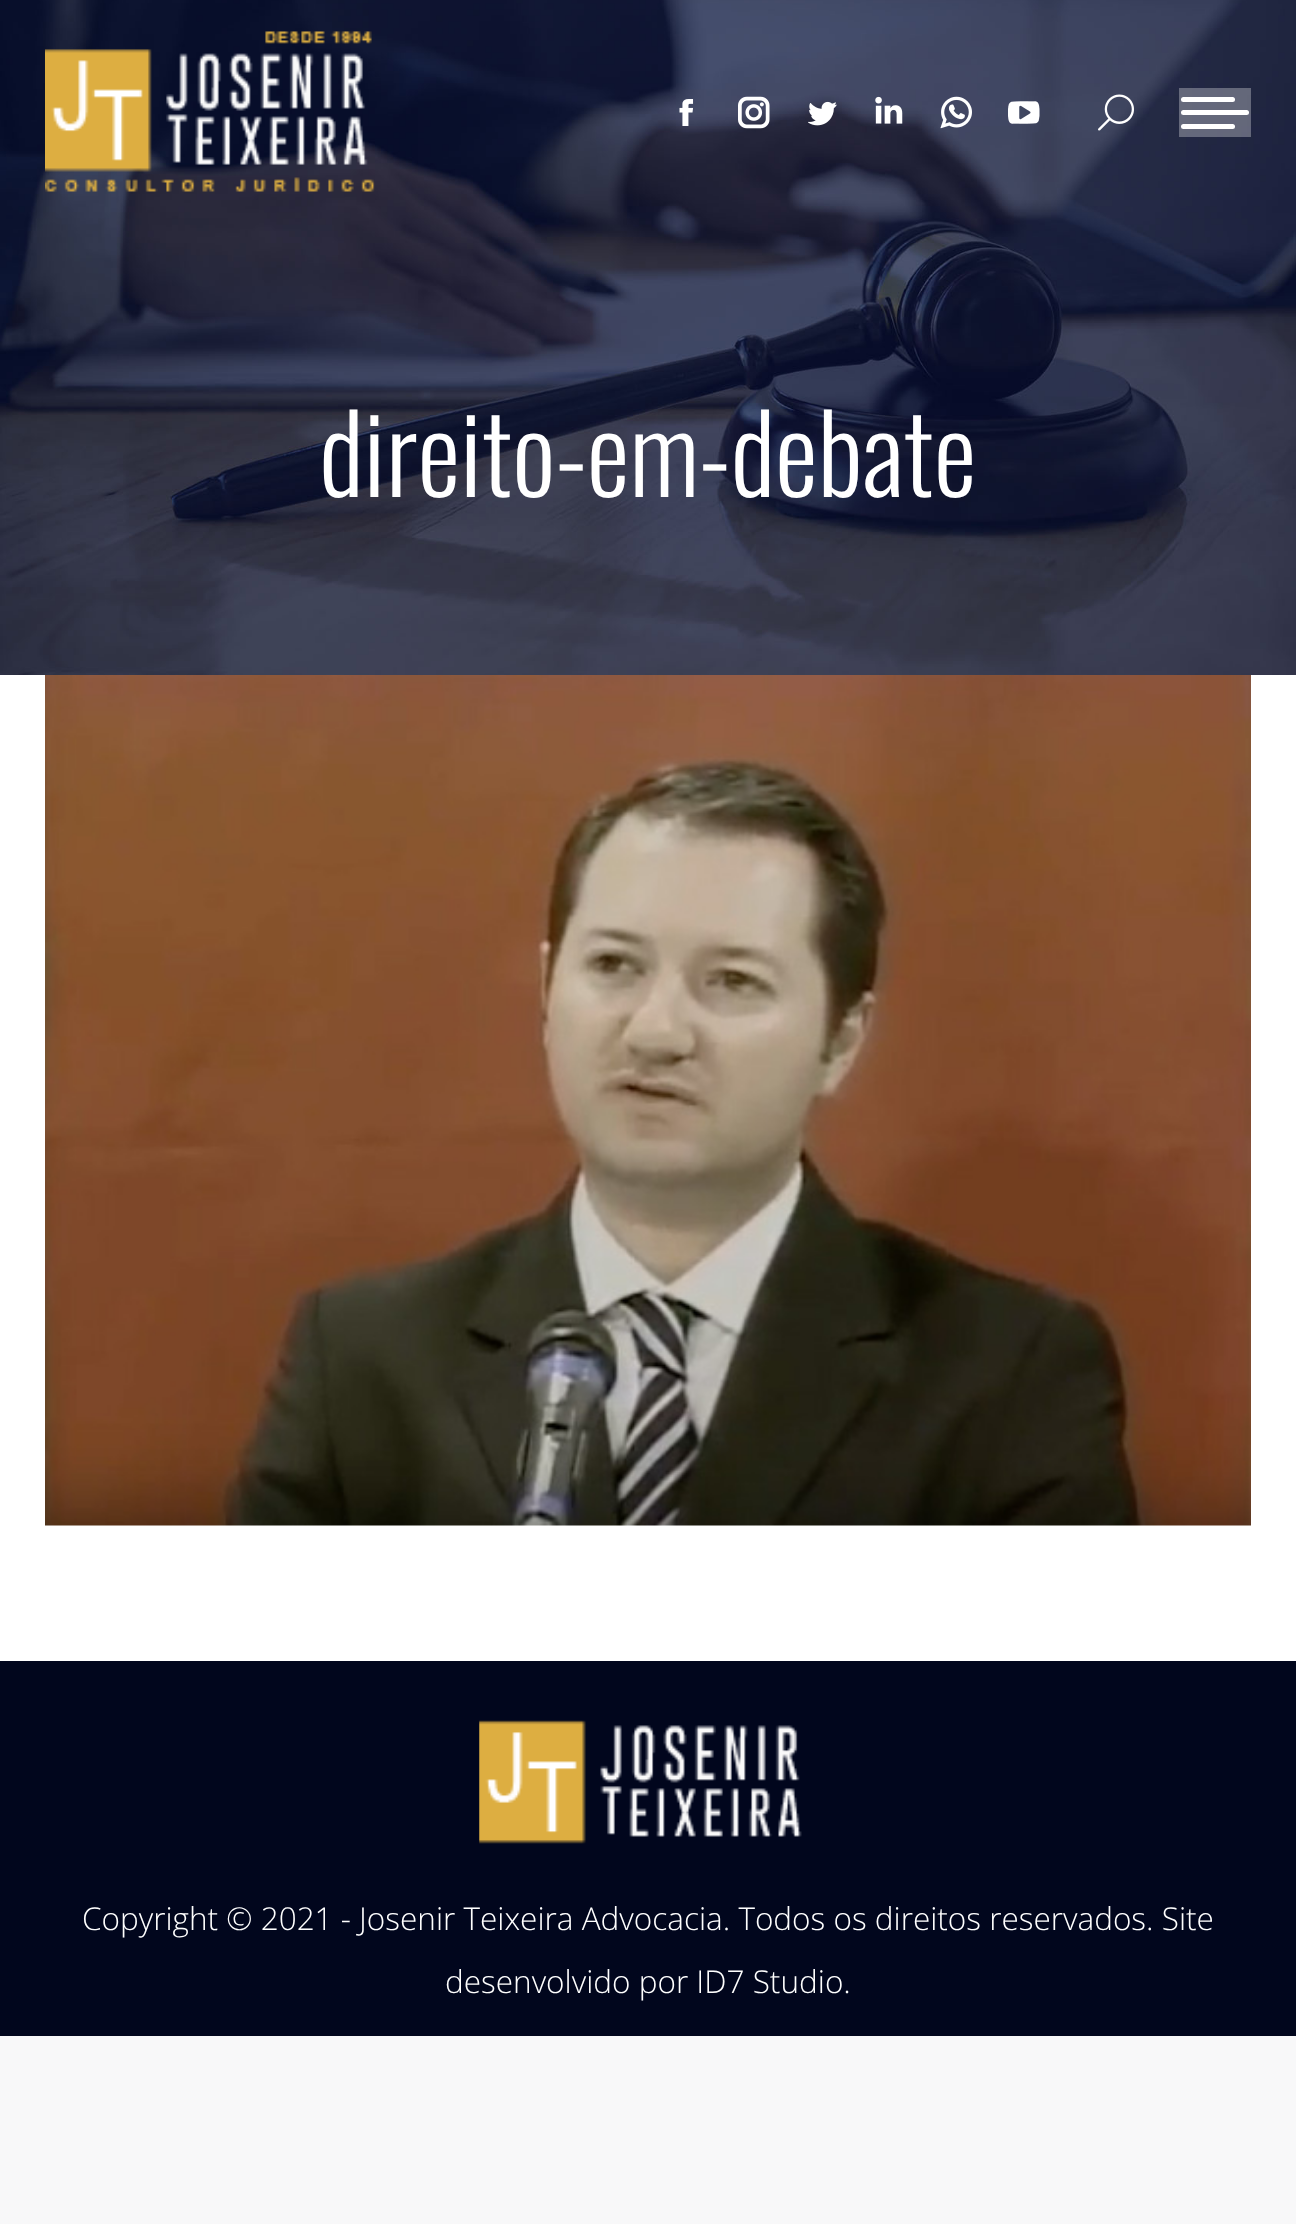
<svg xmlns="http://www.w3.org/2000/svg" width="1296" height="2224">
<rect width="100%" height="100%" fill="#f8f8f9"/>
<rect y="675" width="1296" height="986" fill="#fff"/>
<image x="0" y="0" width="1296" height="675" href="media/9.png"/>
<image x="45" y="31" width="330" height="161" href="media/1.png"/>
<image x="679" y="99" width="15" height="27" href="media/2.png"/>
<image x="738" y="96" width="32" height="33" href="media/3.png"/>
<image x="808" y="101" width="29" height="25" href="media/4.png"/>
<image x="875" y="96" width="28" height="28" href="media/5.png"/>
<image x="940" y="96" width="32" height="33" href="media/6.png"/>
<image x="1008" y="101" width="32" height="23" href="media/7.png"/>
<image x="1098" y="94" width="36" height="37" href="media/8.png"/>
<rect x="1179" y="88" width="72" height="49" fill="#ffffff4d"/>
<rect x="1181" y="97" width="54" height="5" rx="2.5" fill="#fff"/>
<rect x="1181" y="110" width="68" height="5" rx="2.5" fill="#fff"/>
<rect x="1181" y="124" width="54" height="5" rx="2.5" fill="#fff"/>
<text x="319" y="497" style="font-family:Oswald;font-size:108px;font-weight:300;fill:#fff">direito-em-debate</text>
<image x="45" y="675" width="1206" height="851" href="media/10.png"/>
<rect y="1661" width="1296" height="375" fill="#01061d"/>
<image x="479" y="1720" width="323" height="124" href="media/11.png"/>
<text x="82" y="1930" style="font-family:Open Sans;font-size:31.5px;font-weight:300;fill:#fff">Copyright © 2021 - Josenir Teixeira Advocacia. Todos os direitos reservados. Site</text>
<text x="445" y="1993" style="font-family:Open Sans;font-size:31.5px;font-weight:300;fill:#fff">desenvolvido por ID7 Studio.</text>
</svg>
